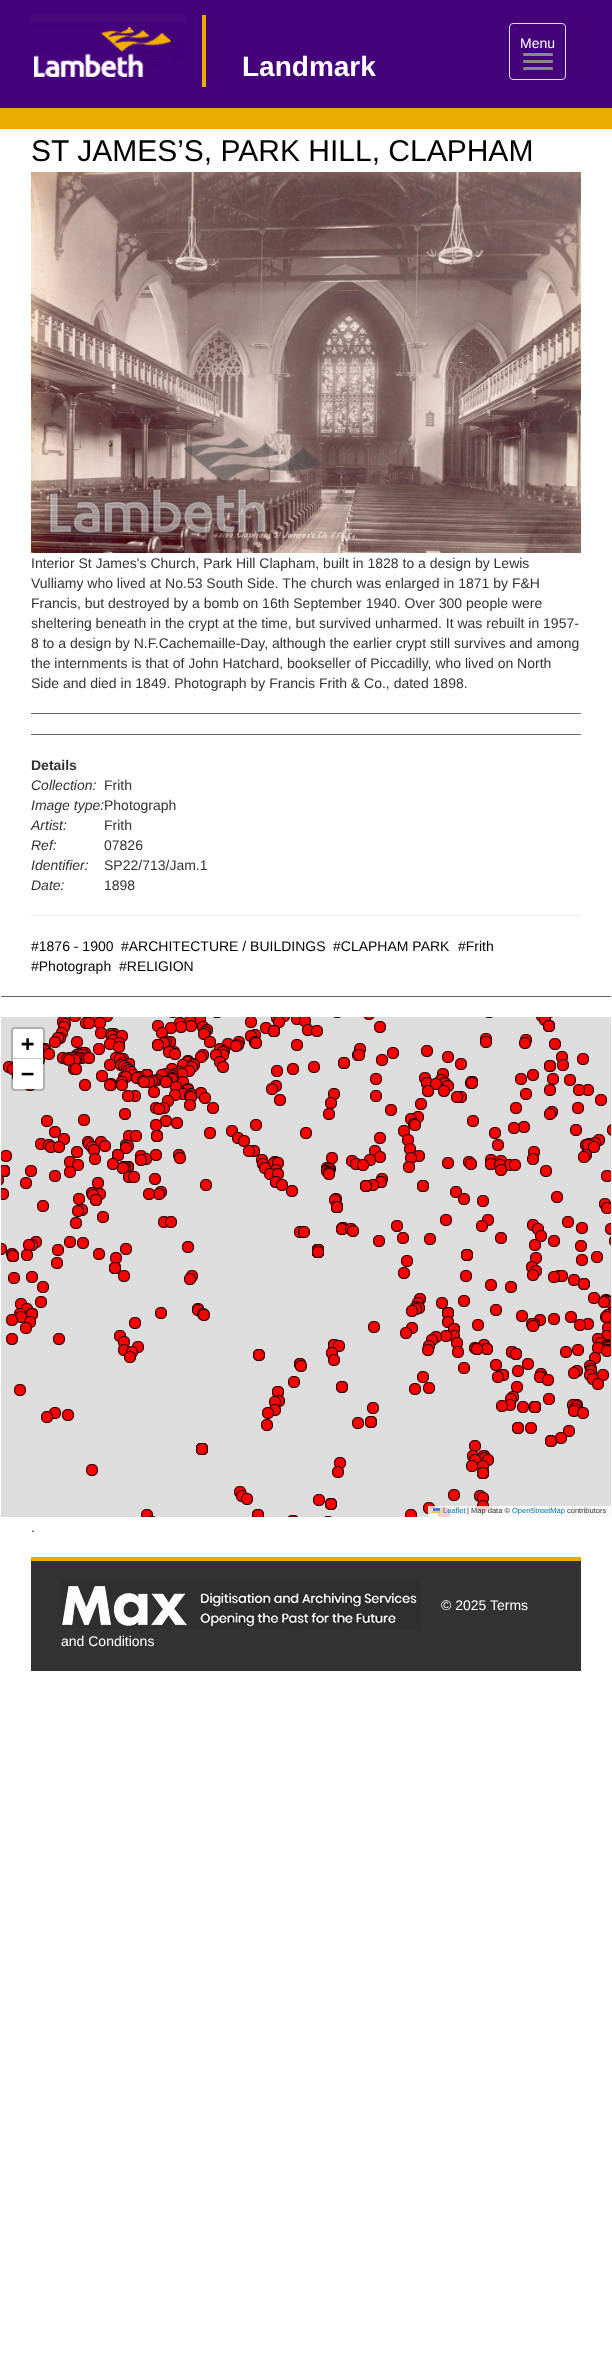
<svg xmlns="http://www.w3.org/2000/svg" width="612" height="2363">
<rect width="100%" height="100%" fill="#fff"/>
<rect width="612" height="108" fill="#44027b"/>
<rect x="509.5" y="23.5" width="56" height="56" rx="3.5" fill="none" stroke="#ddd"/>
<text x="520" y="48" style="font-family:Liberation Sans;font-size:14px;fill:#fff">Menu</text>
<rect x="523" y="53" width="30" height="3" rx="1" fill="#888"/>
<rect x="523" y="60" width="30" height="3" rx="1" fill="#888"/>
<rect x="523" y="67" width="30" height="3" rx="1" fill="#888"/>
<image x="31" y="15" width="156" height="64" href="media/1.png"/>
<rect x="202" y="15" width="4" height="72" fill="#eaac00"/>
<text x="242" y="76" style="font-family:Liberation Sans;font-size:28px;font-weight:bold;fill:#fff">Landmark</text>
<rect y="108" width="612" height="21" fill="#eaac00"/>
<text x="31" y="161" style="font-family:Liberation Sans;font-size:30px;fill:#000">ST JAMES’S, PARK HILL, CLAPHAM</text>
<image x="31" y="172" width="550" height="381" href="media/2.png"/>
<text x="31" y="568" style="font-family:Liberation Sans;font-size:14px;fill:#333">Interior St James's Church, Park Hill Clapham, built in 1828 to a design by Lewis</text>
<text x="31" y="588" style="font-family:Liberation Sans;font-size:14px;fill:#333">Vulliamy who lived at No.53 South Side. The church was enlarged in 1871 by F&amp;H</text>
<text x="31" y="608" style="font-family:Liberation Sans;font-size:14px;fill:#333">Francis, but destroyed by a bomb on 16th September 1940. Over 300 people were</text>
<text x="31" y="628" style="font-family:Liberation Sans;font-size:14px;fill:#333">sheltering beneath in the crypt at the time, but survived unharmed. It was rebuilt in 1957-</text>
<text x="31" y="648" style="font-family:Liberation Sans;font-size:14px;fill:#333">8 to a design by N.F.Cachemaille-Day, although the earlier crypt still survives and among</text>
<text x="31" y="668" style="font-family:Liberation Sans;font-size:14px;fill:#333">the internments is that of John Hatchard, bookseller of Piccadilly, who lived on North</text>
<text x="31" y="688" style="font-family:Liberation Sans;font-size:14px;fill:#333">Side and died in 1849. Photograph by Francis Frith &amp; Co., dated 1898.</text>
<rect x="31" y="713" width="550" height="1" fill="#666"/>
<rect x="31" y="734" width="550" height="1" fill="#666"/>
<text x="31" y="770" style="font-family:Liberation Sans;font-size:14px;font-weight:bold;fill:#333">Details</text>
<text x="31" y="790" style="font-family:Liberation Sans;font-size:14px;font-style:italic;fill:#333">Collection:</text>
<text x="104" y="790" style="font-family:Liberation Sans;font-size:14px;fill:#333">Frith</text>
<text x="31" y="810" style="font-family:Liberation Sans;font-size:14px;font-style:italic;fill:#333">Image type:</text>
<text x="104" y="810" style="font-family:Liberation Sans;font-size:14px;fill:#333">Photograph</text>
<text x="31" y="830" style="font-family:Liberation Sans;font-size:14px;font-style:italic;fill:#333">Artist:</text>
<text x="104" y="830" style="font-family:Liberation Sans;font-size:14px;fill:#333">Frith</text>
<text x="31" y="850" style="font-family:Liberation Sans;font-size:14px;font-style:italic;fill:#333">Ref:</text>
<text x="104" y="850" style="font-family:Liberation Sans;font-size:14px;fill:#333">07826</text>
<text x="31" y="870" style="font-family:Liberation Sans;font-size:14px;font-style:italic;fill:#333">Identifier:</text>
<text x="104" y="870" style="font-family:Liberation Sans;font-size:14px;fill:#333">SP22/713/Jam.1</text>
<text x="31" y="890" style="font-family:Liberation Sans;font-size:14px;font-style:italic;fill:#333">Date:</text>
<text x="104" y="890" style="font-family:Liberation Sans;font-size:14px;fill:#333">1898</text>
<rect x="31" y="915" width="550" height="1" fill="#eee"/>
<text x="31" y="951" style="font-family:Liberation Sans;font-size:14px;fill:#000">#1876 - 1900</text>
<text x="121" y="951" style="font-family:Liberation Sans;font-size:14px;fill:#000">#ARCHITECTURE / BUILDINGS</text>
<text x="333" y="951" style="font-family:Liberation Sans;font-size:14px;fill:#000">#CLAPHAM PARK</text>
<text x="458" y="951" style="font-family:Liberation Sans;font-size:14px;fill:#000">#Frith</text>
<text x="31" y="971" style="font-family:Liberation Sans;font-size:14px;fill:#000">#Photograph</text>
<text x="119" y="971" style="font-family:Liberation Sans;font-size:14px;fill:#000">#RELIGION</text>
<rect x="1" y="996" width="610" height="1" fill="#666"/>
<rect x="1" y="1017" width="610" height="500" fill="#ddd"/>
<image x="67" y="1017" width="2" height="1" href="media/4.png"/>
<image x="68" y="1017" width="2" height="2" href="media/5.png"/>
<image x="68" y="1017" width="3" height="3" href="media/6.png"/>
<image x="68" y="1017" width="3" height="3" href="media/7.png"/>
<image x="68" y="1017" width="3" height="3" href="media/8.png"/>
<image x="68" y="1017" width="3" height="3" href="media/9.png"/>
<image x="69" y="1018" width="2" height="2" href="media/41.png"/>
<image x="69" y="1018" width="2" height="2" href="media/42.png"/>
<image x="70" y="1019" width="1" height="1" href="media/43.png"/>
<image x="70" y="1019" width="1" height="1" href="media/44.png"/>
<image x="68" y="1017" width="4" height="4" href="media/10.png"/>
<image x="68" y="1017" width="4" height="4" href="media/11.png"/>
<image x="57" y="1017" width="12" height="10" href="media/3.png"/>
<image x="69" y="1017" width="12" height="5" href="media/12.png"/>
<image x="84" y="1017" width="5" height="1" href="media/15.png"/>
<image x="88" y="1017" width="1" height="1" href="media/17.png"/>
<image x="102" y="1017" width="11" height="5" href="media/23.png"/>
<image x="101" y="1017" width="2" height="1" href="media/22.png"/>
<image x="101" y="1017" width="1" height="1" href="media/17.png"/>
<image x="100" y="1017" width="2" height="1" href="media/20.png"/>
<image x="100" y="1017" width="1" height="1" href="media/21.png"/>
<image x="97" y="1017" width="4" height="1" href="media/19.png"/>
<image x="87" y="1017" width="12" height="10" href="media/16.png"/>
<image x="80" y="1017" width="10" height="12" href="media/13.png"/>
<image x="83" y="1017" width="12" height="12" href="media/14.png"/>
<image x="94" y="1017" width="12" height="12" href="media/18.png"/>
<image x="169" y="1017" width="8" height="1" href="media/24.png"/>
<image x="194" y="1017" width="12" height="8" href="media/27.png"/>
<image x="184" y="1017" width="12" height="7" href="media/26.png"/>
<image x="174" y="1017" width="12" height="8" href="media/25.png"/>
<image x="213" y="1017" width="8" height="1" href="media/24.png"/>
<image x="213" y="1017" width="8" height="1" href="media/28.png"/>
<image x="245" y="1017" width="12" height="11" href="media/29.png"/>
<image x="282" y="1017" width="8" height="5" href="media/32.png"/>
<image x="271" y="1017" width="12" height="7" href="media/30.png"/>
<image x="273" y="1017" width="12" height="11" href="media/31.png"/>
<image x="291" y="1017" width="10" height="8" href="media/33.png"/>
<image x="299" y="1017" width="12" height="10" href="media/34.png"/>
<image x="333" y="1017" width="8" height="1" href="media/24.png"/>
<image x="363" y="1017" width="12" height="3" href="media/35.png"/>
<image x="485" y="1017" width="8" height="1" href="media/24.png"/>
<image x="536" y="1017" width="4" height="5" href="media/36.png"/>
<image x="550" y="1017" width="3" height="1" href="media/38.png"/>
<image x="550" y="1017" width="3" height="1" href="media/39.png"/>
<image x="539" y="1017" width="12" height="9" href="media/37.png"/>
<image x="59" y="1018" width="12" height="11" href="media/40.png"/>
<image x="152" y="1020" width="12" height="12" href="media/45.png"/>
<image x="185" y="1020" width="12" height="12" href="media/46.png"/>
<image x="543" y="1020" width="12" height="12" href="media/47.png"/>
<image x="543" y="1020" width="12" height="12" href="media/48.png"/>
<image x="58" y="1021" width="12" height="12" href="media/49.png"/>
<image x="175" y="1021" width="12" height="12" href="media/51.png"/>
<image x="165" y="1022" width="12" height="12" href="media/50.png"/>
<image x="197" y="1021" width="12" height="11" href="media/52.png"/>
<image x="260" y="1022" width="12" height="12" href="media/45.png"/>
<image x="374" y="1021" width="12" height="12" href="media/45.png"/>
<image x="543" y="1020" width="12" height="12" href="media/53.png"/>
<image x="201" y="1024" width="12" height="12" href="media/54.png"/>
<image x="268" y="1025" width="12" height="12" href="media/55.png"/>
<image x="302" y="1024" width="12" height="12" href="media/56.png"/>
<image x="268" y="1025" width="12" height="12" href="media/57.png"/>
<image x="268" y="1025" width="12" height="12" href="media/58.png"/>
<image x="268" y="1025" width="12" height="12" href="media/59.png"/>
<image x="268" y="1025" width="12" height="12" href="media/60.png"/>
<image x="199" y="1026" width="12" height="11" href="media/61.png"/>
<image x="268" y="1025" width="12" height="12" href="media/62.png"/>
<image x="311" y="1025" width="12" height="12" href="media/63.png"/>
<image x="56" y="1027" width="12" height="12" href="media/64.png"/>
<image x="95" y="1027" width="12" height="12" href="media/65.png"/>
<image x="110" y="1028" width="10" height="5" href="media/69.png"/>
<image x="105" y="1028" width="12" height="11" href="media/66.png"/>
<image x="156" y="1027" width="12" height="12" href="media/67.png"/>
<image x="199" y="1026" width="12" height="11" href="media/68.png"/>
<image x="198" y="1028" width="12" height="12" href="media/70.png"/>
<image x="250" y="1029" width="11" height="10" href="media/71.png"/>
<image x="107" y="1030" width="11" height="3" href="media/74.png"/>
<image x="106" y="1030" width="12" height="10" href="media/72.png"/>
<image x="56" y="1032" width="10" height="12" href="media/77.png"/>
<image x="52" y="1032" width="12" height="12" href="media/73.png"/>
<image x="116" y="1030" width="12" height="12" href="media/75.png"/>
<image x="245" y="1030" width="12" height="12" href="media/76.png"/>
<image x="107" y="1034" width="12" height="6" href="media/78.png"/>
<image x="480" y="1033" width="12" height="10" href="media/79.png"/>
<image x="520" y="1034" width="12" height="11" href="media/80.png"/>
<image x="49" y="1036" width="12" height="12" href="media/81.png"/>
<image x="71" y="1036" width="12" height="12" href="media/45.png"/>
<image x="166" y="1036" width="10" height="11" href="media/83.png"/>
<image x="166" y="1036" width="10" height="11" href="media/86.png"/>
<image x="160" y="1036" width="12" height="11" href="media/82.png"/>
<image x="113" y="1037" width="12" height="10" href="media/84.png"/>
<image x="158" y="1037" width="12" height="12" href="media/85.png"/>
<image x="204" y="1036" width="12" height="12" href="media/87.png"/>
<image x="233" y="1036" width="12" height="11" href="media/80.png"/>
<image x="249" y="1036" width="12" height="12" href="media/88.png"/>
<image x="480" y="1036" width="12" height="12" href="media/89.png"/>
<image x="104" y="1038" width="12" height="12" href="media/90.png"/>
<image x="152" y="1039" width="12" height="12" href="media/91.png"/>
<image x="222" y="1038" width="12" height="12" href="media/92.png"/>
<image x="250" y="1037" width="12" height="12" href="media/93.png"/>
<image x="519" y="1037" width="12" height="12" href="media/94.png"/>
<image x="549" y="1038" width="12" height="12" href="media/45.png"/>
<image x="152" y="1039" width="12" height="12" href="media/95.png"/>
<image x="232" y="1039" width="12" height="12" href="media/96.png"/>
<image x="291" y="1039" width="12" height="12" href="media/45.png"/>
<image x="43" y="1043" width="8" height="6" href="media/97.png"/>
<image x="93" y="1043" width="12" height="12" href="media/98.png"/>
<image x="113" y="1041" width="12" height="12" href="media/99.png"/>
<image x="214" y="1043" width="12" height="7" href="media/100.png"/>
<image x="230" y="1040" width="12" height="12" href="media/101.png"/>
<image x="354" y="1043" width="12" height="11" href="media/80.png"/>
<image x="43" y="1044" width="7" height="12" href="media/102.png"/>
<image x="170" y="1046" width="10" height="12" href="media/107.png"/>
<image x="163" y="1046" width="12" height="12" href="media/103.png"/>
<image x="218" y="1045" width="12" height="11" href="media/104.png"/>
<image x="421" y="1045" width="12" height="12" href="media/45.png"/>
<image x="43" y="1047" width="1" height="8" href="media/105.png"/>
<image x="81" y="1047" width="10" height="6" href="media/111.png"/>
<image x="78" y="1047" width="11" height="6" href="media/106.png"/>
<image x="217" y="1046" width="12" height="10" href="media/108.png"/>
<image x="43" y="1049" width="1" height="8" href="media/113.png"/>
<image x="43" y="1048" width="12" height="12" href="media/109.png"/>
<image x="73" y="1048" width="11" height="3" href="media/110.png"/>
<image x="169" y="1048" width="12" height="12" href="media/112.png"/>
<image x="387" y="1047" width="12" height="12" href="media/45.png"/>
<image x="71" y="1049" width="10" height="4" href="media/114.png"/>
<image x="76" y="1049" width="12" height="4" href="media/115.png"/>
<image x="76" y="1049" width="12" height="5" href="media/116.png"/>
<image x="197" y="1049" width="12" height="12" href="media/45.png"/>
<image x="219" y="1049" width="10" height="12" href="media/118.png"/>
<image x="210" y="1049" width="12" height="12" href="media/117.png"/>
<image x="352" y="1049" width="12" height="12" href="media/64.png"/>
<image x="57" y="1052" width="10" height="12" href="media/119.png"/>
<image x="70" y="1051" width="10" height="2" href="media/121.png"/>
<image x="78" y="1052" width="8" height="12" href="media/131.png"/>
<image x="83" y="1052" width="12" height="12" href="media/132.png"/>
<image x="74" y="1052" width="10" height="12" href="media/128.png"/>
<image x="74" y="1052" width="10" height="12" href="media/129.png"/>
<image x="72" y="1052" width="10" height="12" href="media/127.png"/>
<image x="66" y="1052" width="9" height="2" href="media/124.png"/>
<image x="66" y="1052" width="9" height="2" href="media/125.png"/>
<image x="65" y="1052" width="9" height="2" href="media/120.png"/>
<image x="195" y="1051" width="12" height="12" href="media/122.png"/>
<image x="353" y="1049" width="12" height="12" href="media/123.png"/>
<image x="442" y="1051" width="12" height="12" href="media/45.png"/>
<image x="556" y="1051" width="12" height="11" href="media/80.png"/>
<image x="68" y="1052" width="11" height="4" href="media/126.png"/>
<image x="61" y="1053" width="11" height="12" href="media/130.png"/>
<image x="110" y="1052" width="11" height="12" href="media/133.png"/>
<image x="119" y="1053" width="10" height="6" href="media/138.png"/>
<image x="114" y="1053" width="12" height="11" href="media/134.png"/>
<image x="43" y="1055" width="2" height="10" href="media/135.png"/>
<image x="71" y="1054" width="10" height="11" href="media/137.png"/>
<image x="63" y="1054" width="12" height="12" href="media/136.png"/>
<image x="182" y="1055" width="12" height="5" href="media/139.png"/>
<image x="376" y="1054" width="12" height="12" href="media/140.png"/>
<image x="577" y="1053" width="12" height="12" href="media/45.png"/>
<image x="117" y="1057" width="11" height="4" href="media/141.png"/>
<image x="182" y="1056" width="12" height="6" href="media/142.png"/>
<image x="214" y="1056" width="12" height="12" href="media/143.png"/>
<image x="338" y="1057" width="12" height="12" href="media/45.png"/>
<image x="124" y="1058" width="11" height="10" href="media/144.png"/>
<image x="338" y="1057" width="12" height="12" href="media/145.png"/>
<image x="124" y="1058" width="11" height="10" href="media/146.png"/>
<image x="124" y="1058" width="11" height="10" href="media/149.png"/>
<image x="115" y="1059" width="11" height="12" href="media/148.png"/>
<image x="104" y="1059" width="12" height="12" href="media/147.png"/>
<image x="187" y="1058" width="12" height="5" href="media/151.png"/>
<image x="188" y="1059" width="12" height="12" href="media/153.png"/>
<image x="177" y="1059" width="12" height="9" href="media/150.png"/>
<image x="455" y="1058" width="12" height="12" href="media/45.png"/>
<image x="118" y="1060" width="12" height="12" href="media/152.png"/>
<image x="544" y="1060" width="12" height="12" href="media/45.png"/>
<image x="557" y="1059" width="12" height="12" href="media/154.png"/>
<image x="3" y="1061" width="10" height="12" href="media/119.png"/>
<image x="121" y="1062" width="12" height="10" href="media/155.png"/>
<image x="186" y="1061" width="12" height="12" href="media/156.png"/>
<image x="217" y="1061" width="12" height="12" href="media/157.png"/>
<image x="308" y="1061" width="12" height="12" href="media/45.png"/>
<image x="544" y="1060" width="12" height="12" href="media/145.png"/>
<image x="7" y="1063" width="6" height="12" href="media/158.png"/>
<image x="68" y="1063" width="10" height="12" href="media/159.png"/>
<image x="70" y="1063" width="12" height="12" href="media/160.png"/>
<image x="123" y="1064" width="12" height="8" href="media/161.png"/>
<image x="166" y="1063" width="12" height="8" href="media/162.png"/>
<image x="183" y="1065" width="12" height="12" href="media/163.png"/>
<image x="271" y="1065" width="12" height="12" href="media/45.png"/>
<image x="287" y="1063" width="12" height="12" href="media/45.png"/>
<image x="125" y="1066" width="12" height="6" href="media/164.png"/>
<image x="174" y="1066" width="12" height="4" href="media/166.png"/>
<image x="170" y="1068" width="9" height="11" href="media/169.png"/>
<image x="161" y="1068" width="11" height="8" href="media/165.png"/>
<image x="127" y="1069" width="12" height="12" href="media/167.png"/>
<image x="141" y="1069" width="12" height="7" href="media/168.png"/>
<image x="176" y="1068" width="12" height="11" href="media/170.png"/>
<image x="437" y="1068" width="12" height="10" href="media/79.png"/>
<image x="141" y="1069" width="12" height="7" href="media/171.png"/>
<image x="141" y="1069" width="12" height="7" href="media/172.png"/>
<image x="141" y="1069" width="12" height="7" href="media/173.png"/>
<image x="141" y="1069" width="12" height="7" href="media/174.png"/>
<image x="141" y="1069" width="12" height="7" href="media/175.png"/>
<image x="141" y="1069" width="12" height="7" href="media/176.png"/>
<image x="141" y="1069" width="12" height="7" href="media/177.png"/>
<image x="96" y="1070" width="12" height="12" href="media/178.png"/>
<image x="118" y="1071" width="10" height="12" href="media/179.png"/>
<image x="141" y="1069" width="12" height="8" href="media/180.png"/>
<image x="156" y="1069" width="12" height="9" href="media/181.png"/>
<image x="167" y="1070" width="12" height="9" href="media/182.png"/>
<image x="527" y="1069" width="12" height="12" href="media/45.png"/>
<image x="12" y="1072" width="1" height="8" href="media/183.png"/>
<image x="120" y="1071" width="12" height="12" href="media/184.png"/>
<image x="133" y="1071" width="12" height="5" href="media/185.png"/>
<image x="131" y="1072" width="12" height="12" href="media/186.png"/>
<image x="167" y="1072" width="12" height="10" href="media/187.png"/>
<image x="419" y="1072" width="12" height="12" href="media/45.png"/>
<image x="137" y="1075" width="11" height="12" href="media/188.png"/>
<image x="152" y="1074" width="11" height="12" href="media/189.png"/>
<image x="166" y="1073" width="12" height="10" href="media/190.png"/>
<image x="370" y="1073" width="12" height="12" href="media/45.png"/>
<image x="435" y="1074" width="12" height="6" href="media/191.png"/>
<image x="515" y="1073" width="12" height="12" href="media/45.png"/>
<image x="547" y="1073" width="12" height="12" href="media/45.png"/>
<image x="564" y="1074" width="12" height="12" href="media/45.png"/>
<image x="150" y="1075" width="10" height="12" href="media/195.png"/>
<image x="147" y="1075" width="11" height="12" href="media/192.png"/>
<image x="116" y="1076" width="12" height="10" href="media/193.png"/>
<image x="145" y="1076" width="10" height="12" href="media/197.png"/>
<image x="138" y="1076" width="12" height="12" href="media/194.png"/>
<image x="161" y="1075" width="12" height="12" href="media/196.png"/>
<image x="160" y="1076" width="12" height="12" href="media/198.png"/>
<image x="160" y="1076" width="12" height="12" href="media/199.png"/>
<image x="177" y="1076" width="12" height="12" href="media/200.png"/>
<image x="466" y="1076" width="12" height="12" href="media/45.png"/>
<image x="466" y="1076" width="12" height="12" href="media/145.png"/>
<image x="421" y="1077" width="12" height="11" href="media/201.png"/>
<image x="466" y="1076" width="12" height="12" href="media/202.png"/>
<image x="421" y="1077" width="12" height="11" href="media/203.png"/>
<image x="439" y="1077" width="12" height="9" href="media/204.png"/>
<image x="465" y="1077" width="12" height="12" href="media/205.png"/>
<image x="79" y="1079" width="12" height="12" href="media/45.png"/>
<image x="105" y="1078" width="12" height="12" href="media/206.png"/>
<image x="430" y="1078" width="12" height="12" href="media/207.png"/>
<image x="466" y="1077" width="12" height="12" href="media/208.png"/>
<image x="116" y="1079" width="12" height="12" href="media/211.png"/>
<image x="105" y="1079" width="12" height="12" href="media/210.png"/>
<image x="104" y="1079" width="12" height="12" href="media/209.png"/>
<image x="170" y="1081" width="12" height="10" href="media/212.png"/>
<image x="182" y="1083" width="12" height="6" href="media/213.png"/>
<image x="270" y="1080" width="12" height="12" href="media/45.png"/>
<image x="442" y="1080" width="12" height="12" href="media/214.png"/>
<image x="181" y="1084" width="12" height="5" href="media/215.png"/>
<image x="266" y="1083" width="12" height="12" href="media/216.png"/>
<image x="182" y="1084" width="12" height="6" href="media/217.png"/>
<image x="422" y="1085" width="12" height="12" href="media/218.png"/>
<image x="544" y="1084" width="12" height="12" href="media/219.png"/>
<image x="583" y="1084" width="11" height="12" href="media/221.png"/>
<image x="573" y="1084" width="12" height="12" href="media/220.png"/>
<image x="25" y="1089" width="10" height="2" href="media/222.png"/>
<image x="131" y="1090" width="10" height="12" href="media/224.png"/>
<image x="122" y="1090" width="12" height="12" href="media/223.png"/>
<image x="148" y="1086" width="12" height="12" href="media/225.png"/>
<image x="178" y="1088" width="10" height="12" href="media/227.png"/>
<image x="169" y="1089" width="12" height="12" href="media/226.png"/>
<image x="195" y="1087" width="12" height="12" href="media/45.png"/>
<image x="185" y="1088" width="12" height="10" href="media/228.png"/>
<image x="328" y="1088" width="12" height="12" href="media/45.png"/>
<image x="422" y="1085" width="12" height="12" href="media/229.png"/>
<image x="438" y="1085" width="12" height="12" href="media/230.png"/>
<image x="520" y="1088" width="12" height="12" href="media/45.png"/>
<image x="184" y="1090" width="12" height="11" href="media/231.png"/>
<image x="370" y="1090" width="12" height="12" href="media/45.png"/>
<image x="185" y="1091" width="12" height="11" href="media/232.png"/>
<image x="457" y="1091" width="10" height="12" href="media/224.png"/>
<image x="451" y="1091" width="12" height="12" href="media/233.png"/>
<image x="150" y="1102" width="11" height="12" href="media/234.png"/>
<image x="162" y="1095" width="12" height="12" href="media/235.png"/>
<image x="184" y="1099" width="12" height="12" href="media/236.png"/>
<image x="199" y="1092" width="12" height="12" href="media/237.png"/>
<image x="274" y="1094" width="12" height="12" href="media/238.png"/>
<image x="325" y="1097" width="12" height="12" href="media/239.png"/>
<image x="415" y="1098" width="12" height="12" href="media/45.png"/>
<image x="595" y="1094" width="12" height="12" href="media/45.png"/>
<image x="159" y="1102" width="11" height="12" href="media/240.png"/>
<image x="207" y="1102" width="12" height="12" href="media/241.png"/>
<image x="510" y="1102" width="12" height="12" href="media/45.png"/>
<image x="572" y="1102" width="12" height="12" href="media/45.png"/>
<image x="119" y="1108" width="12" height="12" href="media/45.png"/>
<image x="153" y="1103" width="12" height="12" href="media/242.png"/>
<image x="323" y="1108" width="12" height="12" href="media/243.png"/>
<image x="385" y="1104" width="12" height="12" href="media/45.png"/>
<image x="546" y="1106" width="12" height="12" href="media/45.png"/>
<image x="41" y="1115" width="12" height="12" href="media/45.png"/>
<image x="78" y="1114" width="12" height="12" href="media/45.png"/>
<image x="160" y="1115" width="12" height="12" href="media/45.png"/>
<image x="171" y="1117" width="12" height="12" href="media/244.png"/>
<image x="412" y="1111" width="12" height="12" href="media/45.png"/>
<image x="405" y="1113" width="12" height="12" href="media/245.png"/>
<image x="467" y="1115" width="12" height="12" href="media/45.png"/>
<image x="544" y="1108" width="12" height="12" href="media/122.png"/>
<image x="150" y="1119" width="12" height="12" href="media/246.png"/>
<image x="250" y="1119" width="12" height="12" href="media/45.png"/>
<image x="408" y="1118" width="12" height="12" href="media/247.png"/>
<image x="49" y="1126" width="12" height="12" href="media/238.png"/>
<image x="123" y="1130" width="10" height="12" href="media/119.png"/>
<image x="130" y="1130" width="12" height="12" href="media/248.png"/>
<image x="151" y="1130" width="12" height="12" href="media/249.png"/>
<image x="204" y="1127" width="12" height="12" href="media/45.png"/>
<image x="226" y="1125" width="12" height="12" href="media/45.png"/>
<image x="300" y="1127" width="12" height="12" href="media/45.png"/>
<image x="409" y="1119" width="12" height="12" href="media/251.png"/>
<image x="398" y="1125" width="12" height="12" href="media/250.png"/>
<image x="489" y="1127" width="12" height="12" href="media/45.png"/>
<image x="518" y="1121" width="12" height="12" href="media/45.png"/>
<image x="508" y="1122" width="12" height="12" href="media/252.png"/>
<image x="570" y="1124" width="12" height="12" href="media/45.png"/>
<image x="607" y="1124" width="4" height="12" href="media/253.png"/>
<image x="151" y="1130" width="12" height="12" href="media/254.png"/>
<image x="58" y="1133" width="12" height="12" href="media/255.png"/>
<image x="151" y="1130" width="12" height="12" href="media/256.png"/>
<image x="232" y="1132" width="12" height="12" href="media/257.png"/>
<image x="374" y="1132" width="12" height="12" href="media/45.png"/>
<image x="402" y="1134" width="12" height="12" href="media/258.png"/>
<image x="593" y="1134" width="12" height="12" href="media/45.png"/>
<image x="35" y="1138" width="11" height="12" href="media/234.png"/>
<image x="82" y="1136" width="12" height="12" href="media/45.png"/>
<image x="95" y="1136" width="12" height="12" href="media/45.png"/>
<image x="238" y="1135" width="12" height="12" href="media/259.png"/>
<image x="590" y="1137" width="11" height="11" href="media/260.png"/>
<image x="43" y="1139" width="12" height="12" href="media/261.png"/>
<image x="83" y="1138" width="12" height="12" href="media/262.png"/>
<image x="120" y="1139" width="12" height="10" href="media/263.png"/>
<image x="492" y="1139" width="12" height="12" href="media/45.png"/>
<image x="584" y="1138" width="11" height="4" href="media/264.png"/>
<image x="580" y="1139" width="10" height="12" href="media/265.png"/>
<image x="45" y="1141" width="11" height="12" href="media/266.png"/>
<image x="53" y="1141" width="12" height="12" href="media/267.png"/>
<image x="86" y="1141" width="12" height="12" href="media/268.png"/>
<image x="99" y="1140" width="12" height="12" href="media/269.png"/>
<image x="122" y="1140" width="12" height="12" href="media/270.png"/>
<image x="582" y="1139" width="12" height="12" href="media/271.png"/>
<image x="88" y="1144" width="12" height="12" href="media/272.png"/>
<image x="120" y="1142" width="12" height="12" href="media/273.png"/>
<image x="250" y="1145" width="10" height="12" href="media/224.png"/>
<image x="243" y="1145" width="12" height="12" href="media/274.png"/>
<image x="404" y="1143" width="12" height="12" href="media/275.png"/>
<image x="588" y="1141" width="12" height="12" href="media/276.png"/>
<image x="71" y="1146" width="12" height="12" href="media/45.png"/>
<image x="112" y="1149" width="12" height="12" href="media/277.png"/>
<image x="369" y="1145" width="12" height="12" href="media/45.png"/>
<image x="528" y="1146" width="12" height="11" href="media/80.png"/>
<image x="112" y="1149" width="12" height="12" href="media/278.png"/>
<image x="1" y="1150" width="11" height="12" href="media/221.png"/>
<image x="112" y="1149" width="12" height="12" href="media/279.png"/>
<image x="135" y="1150" width="12" height="10" href="media/79.png"/>
<image x="150" y="1149" width="12" height="12" href="media/45.png"/>
<image x="173" y="1149" width="12" height="11" href="media/80.png"/>
<image x="374" y="1151" width="12" height="12" href="media/280.png"/>
<image x="413" y="1150" width="12" height="12" href="media/255.png"/>
<image x="580" y="1149" width="12" height="12" href="media/281.png"/>
<image x="89" y="1153" width="12" height="12" href="media/282.png"/>
<image x="141" y="1153" width="11" height="12" href="media/283.png"/>
<image x="174" y="1152" width="12" height="12" href="media/284.png"/>
<image x="326" y="1152" width="12" height="12" href="media/45.png"/>
<image x="405" y="1152" width="12" height="12" href="media/285.png"/>
<image x="527" y="1153" width="12" height="12" href="media/286.png"/>
<image x="578" y="1151" width="12" height="12" href="media/122.png"/>
<image x="64" y="1156" width="12" height="12" href="media/287.png"/>
<image x="135" y="1154" width="12" height="12" href="media/288.png"/>
<image x="256" y="1154" width="12" height="11" href="media/289.png"/>
<image x="269" y="1156" width="11" height="4" href="media/290.png"/>
<image x="346" y="1155" width="12" height="12" href="media/45.png"/>
<image x="364" y="1154" width="12" height="12" href="media/291.png"/>
<image x="463" y="1156" width="12" height="12" href="media/45.png"/>
<image x="485" y="1154" width="12" height="10" href="media/79.png"/>
<image x="495" y="1155" width="12" height="7" href="media/292.png"/>
<image x="268" y="1157" width="10" height="12" href="media/293.png"/>
<image x="107" y="1158" width="12" height="12" href="media/294.png"/>
<image x="257" y="1158" width="12" height="12" href="media/295.png"/>
<image x="272" y="1157" width="12" height="12" href="media/296.png"/>
<image x="350" y="1158" width="11" height="12" href="media/297.png"/>
<image x="442" y="1157" width="12" height="12" href="media/45.png"/>
<image x="465" y="1158" width="12" height="12" href="media/298.png"/>
<image x="485" y="1158" width="12" height="12" href="media/299.png"/>
<image x="72" y="1159" width="12" height="12" href="media/300.png"/>
<image x="124" y="1161" width="10" height="11" href="media/309.png"/>
<image x="124" y="1161" width="10" height="11" href="media/310.png"/>
<image x="124" y="1161" width="10" height="11" href="media/311.png"/>
<image x="124" y="1161" width="10" height="11" href="media/312.png"/>
<image x="119" y="1161" width="12" height="11" href="media/308.png"/>
<image x="118" y="1161" width="12" height="4" href="media/301.png"/>
<image x="357" y="1159" width="12" height="12" href="media/302.png"/>
<image x="485" y="1158" width="12" height="12" href="media/303.png"/>
<image x="504" y="1159" width="9" height="12" href="media/305.png"/>
<image x="494" y="1159" width="12" height="11" href="media/304.png"/>
<image x="509" y="1159" width="12" height="12" href="media/306.png"/>
<image x="118" y="1161" width="12" height="4" href="media/307.png"/>
<image x="403" y="1161" width="12" height="12" href="media/313.png"/>
<image x="121" y="1162" width="10" height="12" href="media/317.png"/>
<image x="117" y="1162" width="12" height="12" href="media/314.png"/>
<image x="117" y="1162" width="12" height="12" href="media/315.png"/>
<image x="117" y="1162" width="12" height="12" href="media/316.png"/>
<image x="259" y="1162" width="12" height="12" href="media/318.png"/>
<image x="321" y="1162" width="11" height="10" href="media/319.png"/>
<image x="322" y="1163" width="10" height="5" href="media/320.png"/>
<image x="324" y="1163" width="12" height="11" href="media/324.png"/>
<image x="323" y="1163" width="12" height="10" href="media/321.png"/>
<image x="1" y="1165" width="9" height="12" href="media/322.png"/>
<image x="270" y="1164" width="12" height="6" href="media/323.png"/>
<image x="495" y="1164" width="12" height="12" href="media/325.png"/>
<image x="1" y="1165" width="9" height="12" href="media/326.png"/>
<image x="1" y="1165" width="9" height="12" href="media/327.png"/>
<image x="1" y="1165" width="9" height="12" href="media/328.png"/>
<image x="7" y="1165" width="3" height="12" href="media/329.png"/>
<image x="7" y="1165" width="3" height="12" href="media/330.png"/>
<image x="7" y="1165" width="3" height="12" href="media/331.png"/>
<image x="25" y="1165" width="12" height="12" href="media/45.png"/>
<image x="64" y="1166" width="12" height="12" href="media/332.png"/>
<image x="321" y="1165" width="12" height="12" href="media/333.png"/>
<image x="540" y="1165" width="12" height="12" href="media/45.png"/>
<image x="323" y="1166" width="12" height="10" href="media/334.png"/>
<image x="273" y="1168" width="10" height="11" href="media/339.png"/>
<image x="264" y="1168" width="11" height="12" href="media/335.png"/>
<image x="272" y="1168" width="12" height="12" href="media/336.png"/>
<image x="323" y="1167" width="12" height="12" href="media/337.png"/>
<image x="49" y="1170" width="12" height="12" href="media/45.png"/>
<image x="123" y="1171" width="10" height="12" href="media/338.png"/>
<image x="323" y="1168" width="12" height="12" href="media/340.png"/>
<image x="601" y="1170" width="10" height="12" href="media/119.png"/>
<image x="1" y="1174" width="3" height="12" href="media/341.png"/>
<image x="128" y="1171" width="12" height="12" href="media/342.png"/>
<image x="149" y="1173" width="12" height="12" href="media/45.png"/>
<image x="270" y="1176" width="12" height="12" href="media/343.png"/>
<image x="376" y="1173" width="12" height="11" href="media/80.png"/>
<image x="270" y="1176" width="12" height="12" href="media/344.png"/>
<image x="375" y="1176" width="12" height="12" href="media/94.png"/>
<image x="20" y="1177" width="12" height="12" href="media/45.png"/>
<image x="92" y="1177" width="12" height="12" href="media/45.png"/>
<image x="200" y="1179" width="12" height="12" href="media/45.png"/>
<image x="276" y="1179" width="12" height="12" href="media/345.png"/>
<image x="375" y="1176" width="12" height="12" href="media/348.png"/>
<image x="368" y="1179" width="11" height="12" href="media/347.png"/>
<image x="360" y="1180" width="12" height="12" href="media/346.png"/>
<image x="360" y="1180" width="12" height="12" href="media/349.png"/>
<image x="360" y="1180" width="12" height="12" href="media/350.png"/>
<image x="417" y="1180" width="12" height="12" href="media/45.png"/>
<image x="1" y="1188" width="8" height="12" href="media/351.png"/>
<image x="86" y="1187" width="11" height="12" href="media/352.png"/>
<image x="95" y="1188" width="11" height="12" href="media/353.png"/>
<image x="155" y="1186" width="12" height="12" href="media/45.png"/>
<image x="153" y="1188" width="12" height="12" href="media/122.png"/>
<image x="143" y="1188" width="12" height="12" href="media/354.png"/>
<image x="286" y="1185" width="12" height="12" href="media/355.png"/>
<image x="417" y="1180" width="12" height="12" href="media/145.png"/>
<image x="450" y="1186" width="12" height="12" href="media/45.png"/>
<image x="73" y="1193" width="12" height="12" href="media/45.png"/>
<image x="87" y="1189" width="12" height="12" href="media/356.png"/>
<image x="330" y="1193" width="12" height="10" href="media/79.png"/>
<image x="458" y="1193" width="12" height="12" href="media/357.png"/>
<image x="551" y="1191" width="12" height="12" href="media/45.png"/>
<image x="90" y="1194" width="12" height="12" href="media/358.png"/>
<image x="37" y="1200" width="12" height="12" href="media/45.png"/>
<image x="90" y="1194" width="12" height="12" href="media/359.png"/>
<image x="329" y="1194" width="12" height="12" href="media/360.png"/>
<image x="477" y="1195" width="12" height="12" href="media/45.png"/>
<image x="599" y="1198" width="12" height="12" href="media/45.png"/>
<image x="331" y="1201" width="12" height="12" href="media/361.png"/>
<image x="331" y="1201" width="12" height="12" href="media/362.png"/>
<image x="331" y="1201" width="12" height="12" href="media/363.png"/>
<image x="331" y="1201" width="12" height="12" href="media/364.png"/>
<image x="331" y="1201" width="12" height="12" href="media/365.png"/>
<image x="331" y="1201" width="12" height="12" href="media/366.png"/>
<image x="331" y="1201" width="12" height="12" href="media/367.png"/>
<image x="77" y="1204" width="11" height="12" href="media/368.png"/>
<image x="331" y="1201" width="12" height="12" href="media/369.png"/>
<image x="601" y="1202" width="10" height="12" href="media/370.png"/>
<image x="72" y="1205" width="12" height="12" href="media/76.png"/>
<image x="97" y="1211" width="12" height="12" href="media/45.png"/>
<image x="158" y="1216" width="10" height="12" href="media/119.png"/>
<image x="165" y="1216" width="12" height="12" href="media/248.png"/>
<image x="440" y="1214" width="12" height="12" href="media/45.png"/>
<image x="482" y="1214" width="12" height="12" href="media/45.png"/>
<image x="562" y="1216" width="12" height="12" href="media/45.png"/>
<image x="70" y="1217" width="12" height="12" href="media/45.png"/>
<image x="337" y="1222" width="11" height="12" href="media/234.png"/>
<image x="391" y="1220" width="12" height="12" href="media/45.png"/>
<image x="476" y="1220" width="12" height="12" href="media/371.png"/>
<image x="527" y="1219" width="12" height="12" href="media/45.png"/>
<image x="337" y="1222" width="11" height="12" href="media/372.png"/>
<image x="576" y="1222" width="12" height="12" href="media/45.png"/>
<image x="336" y="1223" width="11" height="12" href="media/373.png"/>
<image x="336" y="1223" width="11" height="12" href="media/374.png"/>
<image x="345" y="1223" width="12" height="12" href="media/375.png"/>
<image x="532" y="1223" width="12" height="12" href="media/376.png"/>
<image x="605" y="1223" width="6" height="12" href="media/377.png"/>
<image x="294" y="1226" width="10" height="12" href="media/119.png"/>
<image x="347" y="1225" width="12" height="12" href="media/298.png"/>
<image x="30" y="1236" width="12" height="12" href="media/45.png"/>
<image x="28" y="1239" width="10" height="12" href="media/383.png"/>
<image x="23" y="1239" width="12" height="12" href="media/378.png"/>
<image x="64" y="1236" width="12" height="12" href="media/45.png"/>
<image x="77" y="1237" width="12" height="12" href="media/45.png"/>
<image x="298" y="1226" width="12" height="12" href="media/379.png"/>
<image x="373" y="1235" width="12" height="12" href="media/45.png"/>
<image x="397" y="1232" width="12" height="12" href="media/45.png"/>
<image x="424" y="1233" width="12" height="12" href="media/45.png"/>
<image x="495" y="1232" width="12" height="12" href="media/45.png"/>
<image x="535" y="1230" width="12" height="12" href="media/380.png"/>
<image x="548" y="1235" width="12" height="12" href="media/45.png"/>
<image x="609" y="1236" width="2" height="10" href="media/381.png"/>
<image x="1" y="1243" width="6" height="12" href="media/382.png"/>
<image x="52" y="1244" width="12" height="12" href="media/45.png"/>
<image x="120" y="1243" width="12" height="12" href="media/45.png"/>
<image x="182" y="1241" width="12" height="12" href="media/45.png"/>
<image x="312" y="1244" width="12" height="10" href="media/79.png"/>
<image x="529" y="1239" width="12" height="12" href="media/384.png"/>
<image x="575" y="1240" width="12" height="12" href="media/45.png"/>
<image x="312" y="1244" width="12" height="10" href="media/385.png"/>
<image x="312" y="1244" width="12" height="10" href="media/386.png"/>
<image x="312" y="1244" width="12" height="10" href="media/387.png"/>
<image x="312" y="1244" width="12" height="10" href="media/388.png"/>
<image x="312" y="1244" width="12" height="10" href="media/389.png"/>
<image x="312" y="1244" width="12" height="10" href="media/390.png"/>
<image x="312" y="1244" width="12" height="10" href="media/391.png"/>
<image x="312" y="1244" width="12" height="10" href="media/392.png"/>
<image x="312" y="1244" width="12" height="10" href="media/393.png"/>
<image x="312" y="1246" width="12" height="12" href="media/394.png"/>
<image x="312" y="1246" width="12" height="12" href="media/395.png"/>
<image x="312" y="1246" width="12" height="12" href="media/396.png"/>
<image x="312" y="1246" width="12" height="12" href="media/397.png"/>
<image x="6" y="1248" width="12" height="12" href="media/398.png"/>
<image x="93" y="1248" width="12" height="12" href="media/45.png"/>
<image x="312" y="1246" width="12" height="12" href="media/399.png"/>
<image x="21" y="1249" width="12" height="12" href="media/400.png"/>
<image x="312" y="1248" width="12" height="10" href="media/401.png"/>
<image x="461" y="1249" width="12" height="12" href="media/45.png"/>
<image x="461" y="1249" width="12" height="12" href="media/145.png"/>
<image x="7" y="1250" width="12" height="12" href="media/262.png"/>
<image x="461" y="1249" width="12" height="12" href="media/202.png"/>
<image x="7" y="1250" width="12" height="12" href="media/402.png"/>
<image x="7" y="1250" width="12" height="12" href="media/403.png"/>
<image x="7" y="1250" width="12" height="12" href="media/404.png"/>
<image x="7" y="1250" width="12" height="12" href="media/405.png"/>
<image x="110" y="1252" width="12" height="12" href="media/406.png"/>
<image x="312" y="1255" width="12" height="3" href="media/407.png"/>
<image x="530" y="1252" width="12" height="12" href="media/45.png"/>
<image x="576" y="1254" width="12" height="12" href="media/45.png"/>
<image x="591" y="1251" width="12" height="12" href="media/45.png"/>
<image x="312" y="1255" width="12" height="3" href="media/408.png"/>
<image x="312" y="1255" width="12" height="3" href="media/409.png"/>
<image x="312" y="1255" width="12" height="3" href="media/410.png"/>
<image x="51" y="1257" width="12" height="12" href="media/45.png"/>
<image x="109" y="1262" width="12" height="12" href="media/411.png"/>
<image x="312" y="1255" width="12" height="3" href="media/412.png"/>
<image x="401" y="1255" width="12" height="12" href="media/45.png"/>
<image x="526" y="1261" width="12" height="11" href="media/413.png"/>
<image x="109" y="1262" width="12" height="12" href="media/414.png"/>
<image x="109" y="1262" width="12" height="12" href="media/415.png"/>
<image x="398" y="1267" width="12" height="12" href="media/45.png"/>
<image x="530" y="1265" width="12" height="12" href="media/269.png"/>
<image x="118" y="1270" width="12" height="12" href="media/416.png"/>
<image x="186" y="1270" width="12" height="12" href="media/45.png"/>
<image x="460" y="1270" width="12" height="12" href="media/45.png"/>
<image x="527" y="1269" width="12" height="12" href="media/417.png"/>
<image x="554" y="1270" width="9" height="12" href="media/418.png"/>
<image x="8" y="1272" width="12" height="12" href="media/45.png"/>
<image x="26" y="1271" width="12" height="12" href="media/45.png"/>
<image x="184" y="1273" width="12" height="12" href="media/419.png"/>
<image x="557" y="1270" width="11" height="12" href="media/421.png"/>
<image x="548" y="1271" width="12" height="12" href="media/420.png"/>
<image x="568" y="1274" width="12" height="12" href="media/45.png"/>
<image x="578" y="1278" width="12" height="12" href="media/422.png"/>
<image x="37" y="1281" width="12" height="12" href="media/45.png"/>
<image x="485" y="1279" width="12" height="12" href="media/45.png"/>
<image x="505" y="1281" width="12" height="12" href="media/45.png"/>
<image x="578" y="1278" width="12" height="12" href="media/423.png"/>
<image x="414" y="1293" width="12" height="12" href="media/45.png"/>
<image x="458" y="1295" width="12" height="12" href="media/45.png"/>
<image x="588" y="1292" width="12" height="12" href="media/45.png"/>
<image x="600" y="1294" width="11" height="4" href="media/290.png"/>
<image x="35" y="1296" width="12" height="12" href="media/45.png"/>
<image x="602" y="1295" width="9" height="2" href="media/424.png"/>
<image x="606" y="1296" width="5" height="12" href="media/427.png"/>
<image x="598" y="1296" width="12" height="12" href="media/425.png"/>
<image x="15" y="1298" width="12" height="11" href="media/80.png"/>
<image x="412" y="1297" width="12" height="8" href="media/426.png"/>
<image x="436" y="1297" width="12" height="12" href="media/45.png"/>
<image x="410" y="1301" width="11" height="5" href="media/428.png"/>
<image x="21" y="1303" width="12" height="12" href="media/429.png"/>
<image x="192" y="1303" width="12" height="12" href="media/45.png"/>
<image x="414" y="1302" width="11" height="12" href="media/430.png"/>
<image x="192" y="1304" width="12" height="12" href="media/431.png"/>
<image x="410" y="1303" width="12" height="12" href="media/432.png"/>
<image x="490" y="1304" width="12" height="12" href="media/45.png"/>
<image x="155" y="1307" width="12" height="12" href="media/45.png"/>
<image x="406" y="1305" width="12" height="12" href="media/433.png"/>
<image x="442" y="1307" width="12" height="11" href="media/434.png"/>
<image x="442" y="1307" width="12" height="11" href="media/435.png"/>
<image x="442" y="1307" width="12" height="11" href="media/436.png"/>
<image x="14" y="1308" width="12" height="8" href="media/437.png"/>
<image x="26" y="1308" width="12" height="12" href="media/438.png"/>
<image x="442" y="1307" width="12" height="11" href="media/439.png"/>
<image x="606" y="1307" width="5" height="3" href="media/440.png"/>
<image x="26" y="1308" width="12" height="12" href="media/441.png"/>
<image x="26" y="1308" width="12" height="12" href="media/53.png"/>
<image x="197" y="1308" width="12" height="12" href="media/376.png"/>
<image x="15" y="1311" width="12" height="12" href="media/442.png"/>
<image x="198" y="1309" width="12" height="12" href="media/443.png"/>
<image x="516" y="1310" width="12" height="12" href="media/45.png"/>
<image x="565" y="1311" width="12" height="12" href="media/45.png"/>
<image x="602" y="1309" width="9" height="4" href="media/444.png"/>
<image x="600" y="1311" width="11" height="12" href="media/445.png"/>
<image x="6" y="1314" width="12" height="12" href="media/446.png"/>
<image x="24" y="1316" width="12" height="12" href="media/447.png"/>
<image x="129" y="1317" width="12" height="12" href="media/45.png"/>
<image x="442" y="1316" width="12" height="12" href="media/448.png"/>
<image x="534" y="1314" width="12" height="12" href="media/45.png"/>
<image x="530" y="1318" width="10" height="12" href="media/451.png"/>
<image x="526" y="1318" width="12" height="12" href="media/449.png"/>
<image x="548" y="1313" width="12" height="12" href="media/45.png"/>
<image x="601" y="1311" width="10" height="12" href="media/450.png"/>
<image x="472" y="1319" width="12" height="12" href="media/45.png"/>
<image x="583" y="1318" width="11" height="12" href="media/221.png"/>
<image x="574" y="1319" width="12" height="12" href="media/452.png"/>
<image x="20" y="1322" width="12" height="12" href="media/453.png"/>
<image x="368" y="1321" width="12" height="12" href="media/45.png"/>
<image x="406" y="1322" width="12" height="12" href="media/45.png"/>
<image x="448" y="1323" width="12" height="10" href="media/454.png"/>
<image x="527" y="1320" width="12" height="12" href="media/455.png"/>
<image x="602" y="1322" width="9" height="10" href="media/456.png"/>
<image x="114" y="1330" width="12" height="12" href="media/45.png"/>
<image x="400" y="1327" width="12" height="12" href="media/457.png"/>
<image x="448" y="1323" width="12" height="10" href="media/459.png"/>
<image x="449" y="1330" width="11" height="12" href="media/460.png"/>
<image x="440" y="1330" width="12" height="12" href="media/458.png"/>
<image x="6" y="1333" width="12" height="12" href="media/45.png"/>
<image x="53" y="1333" width="12" height="12" href="media/45.png"/>
<image x="430" y="1331" width="12" height="12" href="media/252.png"/>
<image x="601" y="1330" width="10" height="11" href="media/462.png"/>
<image x="592" y="1333" width="12" height="11" href="media/461.png"/>
<image x="118" y="1336" width="12" height="11" href="media/463.png"/>
<image x="328" y="1339" width="11" height="10" href="media/464.png"/>
<image x="426" y="1334" width="12" height="12" href="media/216.png"/>
<image x="451" y="1337" width="12" height="12" href="media/465.png"/>
<image x="595" y="1337" width="12" height="7" href="media/466.png"/>
<image x="328" y="1339" width="11" height="10" href="media/467.png"/>
<image x="478" y="1339" width="12" height="7" href="media/168.png"/>
<image x="601" y="1339" width="10" height="5" href="media/468.png"/>
<image x="333" y="1340" width="12" height="12" href="media/469.png"/>
<image x="423" y="1340" width="12" height="11" href="media/470.png"/>
<image x="602" y="1340" width="9" height="4" href="media/471.png"/>
<image x="132" y="1341" width="12" height="12" href="media/45.png"/>
<image x="602" y="1340" width="9" height="4" href="media/472.png"/>
<image x="601" y="1341" width="10" height="6" href="media/473.png"/>
<image x="469" y="1342" width="12" height="12" href="media/474.png"/>
<image x="603" y="1341" width="8" height="6" href="media/476.png"/>
<image x="592" y="1342" width="12" height="12" href="media/475.png"/>
<image x="481" y="1343" width="12" height="12" href="media/479.png"/>
<image x="481" y="1343" width="12" height="12" href="media/482.png"/>
<image x="471" y="1343" width="12" height="12" href="media/477.png"/>
<image x="471" y="1343" width="12" height="12" href="media/478.png"/>
<image x="118" y="1344" width="12" height="12" href="media/480.png"/>
<image x="422" y="1344" width="12" height="12" href="media/481.png"/>
<image x="572" y="1344" width="12" height="12" href="media/45.png"/>
<image x="602" y="1344" width="9" height="12" href="media/483.png"/>
<image x="126" y="1346" width="12" height="12" href="media/484.png"/>
<image x="452" y="1346" width="12" height="12" href="media/282.png"/>
<image x="506" y="1346" width="12" height="12" href="media/45.png"/>
<image x="601" y="1345" width="10" height="12" href="media/485.png"/>
<image x="326" y="1347" width="12" height="12" href="media/486.png"/>
<image x="506" y="1346" width="12" height="12" href="media/145.png"/>
<image x="560" y="1346" width="12" height="12" href="media/45.png"/>
<image x="510" y="1348" width="12" height="12" href="media/487.png"/>
<image x="253" y="1349" width="12" height="12" href="media/45.png"/>
<image x="510" y="1348" width="12" height="12" href="media/488.png"/>
<image x="124" y="1351" width="12" height="12" href="media/489.png"/>
<image x="253" y="1349" width="12" height="12" href="media/145.png"/>
<image x="294" y="1358" width="12" height="12" href="media/45.png"/>
<image x="328" y="1354" width="12" height="12" href="media/490.png"/>
<image x="589" y="1352" width="12" height="12" href="media/491.png"/>
<image x="294" y="1358" width="12" height="12" href="media/145.png"/>
<image x="490" y="1359" width="12" height="12" href="media/45.png"/>
<image x="522" y="1358" width="12" height="12" href="media/45.png"/>
<image x="295" y="1360" width="12" height="12" href="media/492.png"/>
<image x="458" y="1362" width="12" height="12" href="media/45.png"/>
<image x="584" y="1360" width="12" height="11" href="media/493.png"/>
<image x="512" y="1365" width="12" height="12" href="media/494.png"/>
<image x="571" y="1365" width="12" height="12" href="media/45.png"/>
<image x="585" y="1363" width="12" height="10" href="media/495.png"/>
<image x="497" y="1369" width="12" height="12" href="media/496.png"/>
<image x="535" y="1368" width="12" height="6" href="media/497.png"/>
<image x="568" y="1367" width="12" height="12" href="media/498.png"/>
<image x="585" y="1365" width="12" height="10" href="media/499.png"/>
<image x="417" y="1371" width="12" height="12" href="media/45.png"/>
<image x="497" y="1369" width="12" height="12" href="media/500.png"/>
<image x="584" y="1369" width="12" height="12" href="media/501.png"/>
<image x="597" y="1369" width="12" height="12" href="media/45.png"/>
<image x="492" y="1371" width="12" height="12" href="media/502.png"/>
<image x="538" y="1371" width="10" height="12" href="media/504.png"/>
<image x="534" y="1371" width="12" height="12" href="media/503.png"/>
<image x="587" y="1373" width="12" height="12" href="media/505.png"/>
<image x="288" y="1376" width="12" height="12" href="media/45.png"/>
<image x="336" y="1381" width="12" height="12" href="media/45.png"/>
<image x="542" y="1374" width="12" height="12" href="media/506.png"/>
<image x="592" y="1378" width="12" height="12" href="media/507.png"/>
<image x="14" y="1384" width="12" height="12" href="media/45.png"/>
<image x="272" y="1386" width="12" height="11" href="media/80.png"/>
<image x="336" y="1381" width="12" height="12" href="media/145.png"/>
<image x="409" y="1383" width="12" height="12" href="media/45.png"/>
<image x="423" y="1382" width="12" height="12" href="media/508.png"/>
<image x="511" y="1381" width="12" height="12" href="media/45.png"/>
<image x="272" y="1386" width="12" height="11" href="media/509.png"/>
<image x="507" y="1391" width="12" height="12" href="media/510.png"/>
<image x="274" y="1395" width="11" height="12" href="media/511.png"/>
<image x="505" y="1393" width="12" height="11" href="media/512.png"/>
<image x="543" y="1393" width="12" height="12" href="media/45.png"/>
<image x="269" y="1396" width="12" height="11" href="media/513.png"/>
<image x="505" y="1399" width="11" height="12" href="media/514.png"/>
<image x="573" y="1399" width="10" height="9" href="media/517.png"/>
<image x="567" y="1399" width="11" height="11" href="media/515.png"/>
<image x="496" y="1400" width="12" height="12" href="media/516.png"/>
<image x="517" y="1401" width="12" height="12" href="media/518.png"/>
<image x="529" y="1401" width="12" height="12" href="media/45.png"/>
<image x="570" y="1400" width="12" height="8" href="media/519.png"/>
<image x="529" y="1401" width="12" height="12" href="media/145.png"/>
<image x="529" y="1401" width="12" height="12" href="media/202.png"/>
<image x="529" y="1401" width="12" height="12" href="media/520.png"/>
<image x="529" y="1401" width="12" height="12" href="media/521.png"/>
<image x="529" y="1401" width="12" height="12" href="media/522.png"/>
<image x="529" y="1401" width="12" height="12" href="media/523.png"/>
<image x="529" y="1401" width="12" height="12" href="media/524.png"/>
<image x="269" y="1404" width="12" height="12" href="media/525.png"/>
<image x="367" y="1402" width="12" height="12" href="media/45.png"/>
<image x="529" y="1401" width="12" height="12" href="media/526.png"/>
<image x="569" y="1403" width="12" height="6" href="media/527.png"/>
<image x="49" y="1407" width="12" height="12" href="media/45.png"/>
<image x="41" y="1411" width="12" height="12" href="media/528.png"/>
<image x="62" y="1409" width="12" height="12" href="media/45.png"/>
<image x="262" y="1407" width="12" height="12" href="media/529.png"/>
<image x="365" y="1416" width="12" height="12" href="media/45.png"/>
<image x="568" y="1405" width="12" height="12" href="media/530.png"/>
<image x="577" y="1407" width="12" height="12" href="media/531.png"/>
<image x="365" y="1416" width="12" height="12" href="media/145.png"/>
<image x="261" y="1419" width="12" height="12" href="media/45.png"/>
<image x="352" y="1417" width="12" height="12" href="media/45.png"/>
<image x="365" y="1416" width="12" height="12" href="media/202.png"/>
<image x="512" y="1422" width="12" height="12" href="media/45.png"/>
<image x="512" y="1422" width="12" height="12" href="media/145.png"/>
<image x="525" y="1422" width="12" height="12" href="media/45.png"/>
<image x="563" y="1425" width="12" height="12" href="media/45.png"/>
<image x="555" y="1432" width="12" height="12" href="media/277.png"/>
<image x="545" y="1435" width="12" height="12" href="media/532.png"/>
<image x="196" y="1443" width="12" height="12" href="media/45.png"/>
<image x="469" y="1440" width="12" height="12" href="media/45.png"/>
<image x="545" y="1435" width="12" height="12" href="media/533.png"/>
<image x="196" y="1443" width="12" height="12" href="media/145.png"/>
<image x="196" y="1443" width="12" height="12" href="media/202.png"/>
<image x="196" y="1443" width="12" height="12" href="media/520.png"/>
<image x="196" y="1443" width="12" height="12" href="media/521.png"/>
<image x="196" y="1443" width="12" height="12" href="media/522.png"/>
<image x="196" y="1443" width="12" height="12" href="media/523.png"/>
<image x="196" y="1443" width="12" height="12" href="media/524.png"/>
<image x="196" y="1443" width="12" height="12" href="media/526.png"/>
<image x="196" y="1443" width="12" height="12" href="media/534.png"/>
<image x="196" y="1443" width="12" height="12" href="media/535.png"/>
<image x="478" y="1450" width="12" height="6" href="media/537.png"/>
<image x="478" y="1450" width="12" height="7" href="media/538.png"/>
<image x="467" y="1450" width="12" height="11" href="media/536.png"/>
<image x="479" y="1452" width="12" height="9" href="media/540.png"/>
<image x="469" y="1454" width="12" height="12" href="media/539.png"/>
<image x="469" y="1454" width="12" height="12" href="media/541.png"/>
<image x="334" y="1457" width="12" height="12" href="media/45.png"/>
<image x="469" y="1454" width="12" height="12" href="media/542.png"/>
<image x="482" y="1454" width="12" height="12" href="media/543.png"/>
<image x="86" y="1464" width="12" height="12" href="media/45.png"/>
<image x="332" y="1466" width="12" height="12" href="media/313.png"/>
<image x="466" y="1460" width="12" height="12" href="media/544.png"/>
<image x="477" y="1460" width="12" height="10" href="media/545.png"/>
<image x="477" y="1467" width="12" height="12" href="media/546.png"/>
<image x="477" y="1467" width="12" height="12" href="media/547.png"/>
<image x="477" y="1467" width="12" height="12" href="media/548.png"/>
<image x="477" y="1467" width="12" height="12" href="media/549.png"/>
<image x="477" y="1467" width="12" height="12" href="media/550.png"/>
<image x="477" y="1467" width="12" height="12" href="media/551.png"/>
<image x="477" y="1467" width="12" height="12" href="media/552.png"/>
<image x="477" y="1467" width="12" height="12" href="media/553.png"/>
<image x="477" y="1467" width="12" height="12" href="media/554.png"/>
<image x="234" y="1486" width="12" height="12" href="media/45.png"/>
<image x="448" y="1489" width="12" height="12" href="media/45.png"/>
<image x="236" y="1490" width="12" height="12" href="media/555.png"/>
<image x="474" y="1490" width="12" height="12" href="media/45.png"/>
<image x="241" y="1493" width="12" height="12" href="media/556.png"/>
<image x="313" y="1494" width="12" height="12" href="media/45.png"/>
<image x="325" y="1498" width="12" height="12" href="media/45.png"/>
<image x="477" y="1492" width="12" height="11" href="media/557.png"/>
<image x="325" y="1498" width="12" height="12" href="media/145.png"/>
<image x="141" y="1509" width="12" height="8" href="media/558.png"/>
<image x="252" y="1509" width="12" height="8" href="media/558.png"/>
<image x="325" y="1498" width="12" height="12" href="media/202.png"/>
<image x="423" y="1502" width="12" height="12" href="media/45.png"/>
<image x="438" y="1507" width="12" height="10" href="media/79.png"/>
<image x="477" y="1500" width="12" height="12" href="media/559.png"/>
<image x="252" y="1509" width="12" height="8" href="media/560.png"/>
<image x="288" y="1515" width="10" height="2" href="media/561.png"/>
<image x="405" y="1509" width="12" height="8" href="media/558.png"/>
<image x="288" y="1515" width="10" height="2" href="media/562.png"/>
<image x="148" y="1516" width="8" height="1" href="media/563.png"/>
<image x="288" y="1515" width="10" height="2" href="media/564.png"/>
<image x="324" y="1516" width="8" height="1" href="media/24.png"/>
<image x="324" y="1516" width="8" height="1" href="media/28.png"/>
<rect x="12" y="1028" width="32" height="62" rx="3" fill="none" stroke="#00000033" stroke-width="2"/>
<path d="M15 1029h26c1 0 2 1 2 2v28h-30v-28c0-1 1-2 2-2z" fill="#fff"/>
<rect x="13" y="1058" width="30" height="1" fill="#ccc"/>
<text x="21" y="1051" style="font-family:DejaVu Sans Mono;font-size:22px;font-weight:bold;fill:#000">+</text>
<path d="M13 1059h30v28c0 1-1 2-2 2h-26c-1 0-2-1-2-2z" fill="#fff"/>
<text x="21" y="1081" style="font-family:DejaVu Sans Mono;font-size:22px;font-weight:bold;fill:#000">−</text>
<rect x="428" y="1506" width="183" height="11" fill="#ffffffcc"/>
<image x="433" y="1508" width="7" height="5" href="media/565.png"/>
<text x="443" y="1513" style="font-family:Liberation Sans;font-size:7.5px;fill:#0078a8">Leaflet</text>
<text x="467" y="1513" style="font-family:Liberation Sans;font-size:7.5px;fill:#333">| Map data ©</text>
<text x="512" y="1513" style="font-family:Liberation Sans;font-size:7.5px;fill:#0078a8">OpenStreetMap</text>
<text x="567" y="1513" style="font-family:Liberation Sans;font-size:7.5px;fill:#333">contributors</text>
<text x="31" y="1532" style="font-family:Liberation Sans;font-size:14px;fill:#333">.</text>
<rect x="31" y="1561" width="550" height="110" fill="#333"/>
<rect x="31" y="1557" width="550" height="4" fill="#eaac00"/>
<image x="61" y="1581" width="360" height="48" href="media/566.png"/>
<text x="441" y="1610" style="font-family:Liberation Sans;font-size:14px;fill:#fff">© 2025 Terms</text>
<text x="61" y="1646" style="font-family:Liberation Sans;font-size:14px;fill:#fff">and Conditions</text>
</svg>
